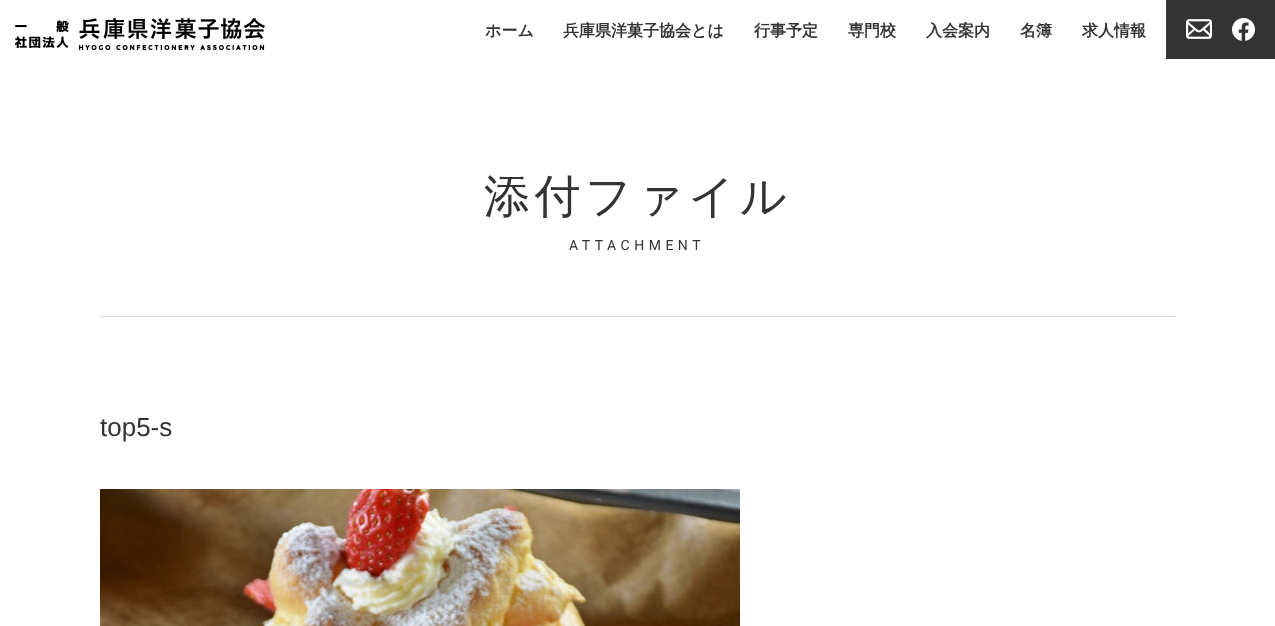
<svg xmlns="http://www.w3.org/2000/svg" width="1275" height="626">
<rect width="100%" height="100%" fill="#fff"/>
<image x="15" y="18" width="250" height="32" href="media/1.png"/>
<text x="485" y="36" style="font-family:WenQuanYi Zen Hei;font-size:16px;font-weight:bold;fill:#333">ホーム</text>
<text x="563" y="36" style="font-family:WenQuanYi Zen Hei;font-size:16px;font-weight:bold;fill:#333">兵庫県洋菓子協会とは</text>
<text x="754" y="36" style="font-family:WenQuanYi Zen Hei;font-size:16px;font-weight:bold;fill:#333">行事予定</text>
<text x="848" y="36" style="font-family:WenQuanYi Zen Hei;font-size:16px;font-weight:bold;fill:#333">専門校</text>
<text x="926" y="36" style="font-family:WenQuanYi Zen Hei;font-size:16px;font-weight:bold;fill:#333">入会案内</text>
<text x="1020" y="36" style="font-family:WenQuanYi Zen Hei;font-size:16px;font-weight:bold;fill:#333">名簿</text>
<text x="1082" y="36" style="font-family:WenQuanYi Zen Hei;font-size:16px;font-weight:bold;fill:#333">求人情報</text>
<rect x="1166" width="109" height="59" fill="#333"/>
<image x="1186" y="19" width="26" height="20" href="media/2.png"/>
<image x="1232" y="18" width="23" height="23" href="media/3.png"/>
<rect x="100" y="316" width="1075" height="1" fill="#ddd"/>
<text x="484" y="212" style="font-family:WenQuanYi Zen Hei;font-size:46px;font-weight:500;letter-spacing:4.5px;fill:#333">添付ファイル</text>
<text x="569" y="250" style="font-family:Roboto;font-size:14px;letter-spacing:4.5px;fill:#333">ATTACHMENT</text>
<text x="100" y="436" style="font-family:Liberation Sans;font-size:26px;fill:#333">top5-s</text>
<image x="100" y="489" width="640" height="137" href="media/4.png"/>
</svg>
